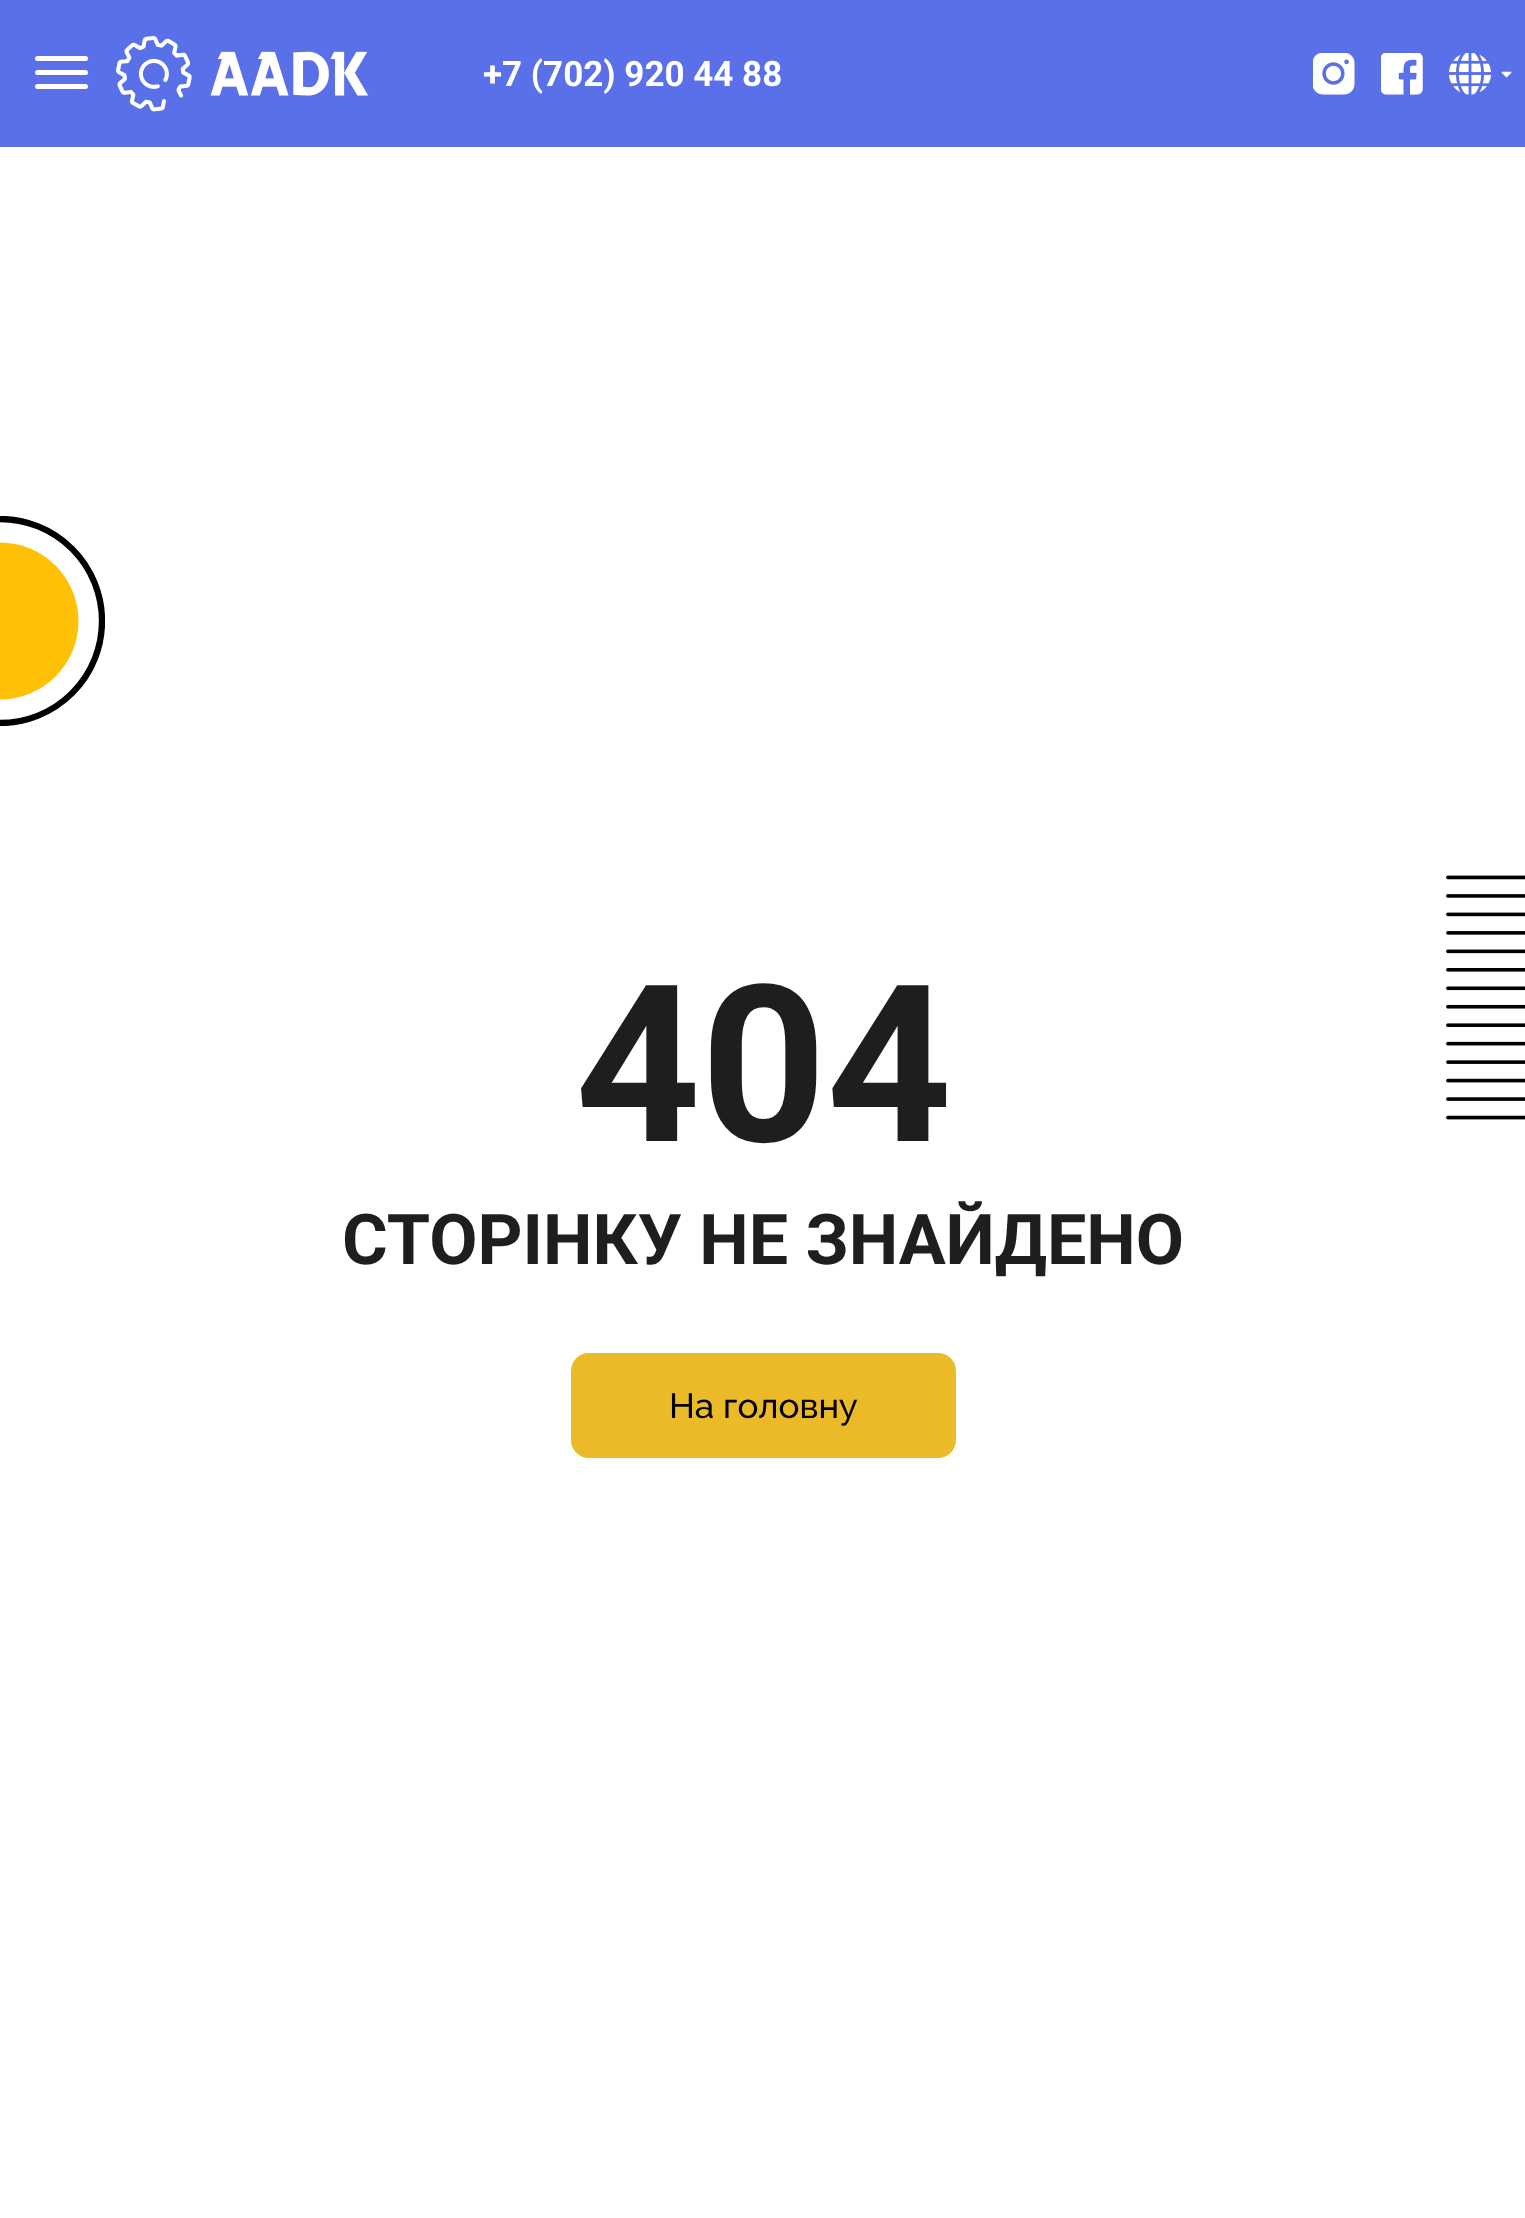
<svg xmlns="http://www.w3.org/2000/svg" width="1525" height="2218">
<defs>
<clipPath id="clip1"><rect y="516" width="105" height="210"/></clipPath>
</defs>
<rect width="100%" height="100%" fill="#fff"/>
<rect width="1525" height="147" fill="#5a70e8"/>
<rect x="35" y="56" width="53" height="5" rx="2.5" fill="#fff"/>
<rect x="35" y="70" width="53" height="5" rx="2.5" fill="#fff"/>
<rect x="35" y="84" width="53" height="5" rx="2.5" fill="#fff"/>
<image x="116" y="36" width="253" height="76" href="media/1.png"/>
<text x="483" y="86" style="font-family:Roboto;font-size:35px;font-weight:bold;fill:#fff">+7 (702) 920 44 88</text>
<image x="1313" y="53" width="42" height="42" href="media/2.png"/>
<image x="1381" y="53" width="42" height="42" href="media/3.png"/>
<image x="1449" y="53" width="42" height="42" href="media/4.png"/>
<image x="1501" y="71" width="11" height="7" href="media/5.png"/>
<g clip-path="url(#clip1)">
<circle cx="0" cy="621" r="102" fill="none" stroke="#000" stroke-width="6.3"/>
</g>
<circle cx="0" cy="621" r="78.5" fill="#ffc005"/>
<text x="575" y="1141" style="font-family:Roboto;font-size:219px;font-weight:bold;fill:#1e1e1e">404</text>
<text x="342" y="1264" style="font-family:Roboto;font-size:70px;font-weight:bold;fill:#1e1e1e">СТОРІНКУ НЕ ЗНАЙДЕНО</text>
<rect x="571" y="1353" width="385" height="105" rx="18" fill="#ebba28"/>
<text x="669" y="1418" style="font-family:Raleway;font-size:35px;font-weight:500;fill:#000">На головну</text>
<image x="1446" y="875" width="79" height="245" href="media/6.png"/>
</svg>
